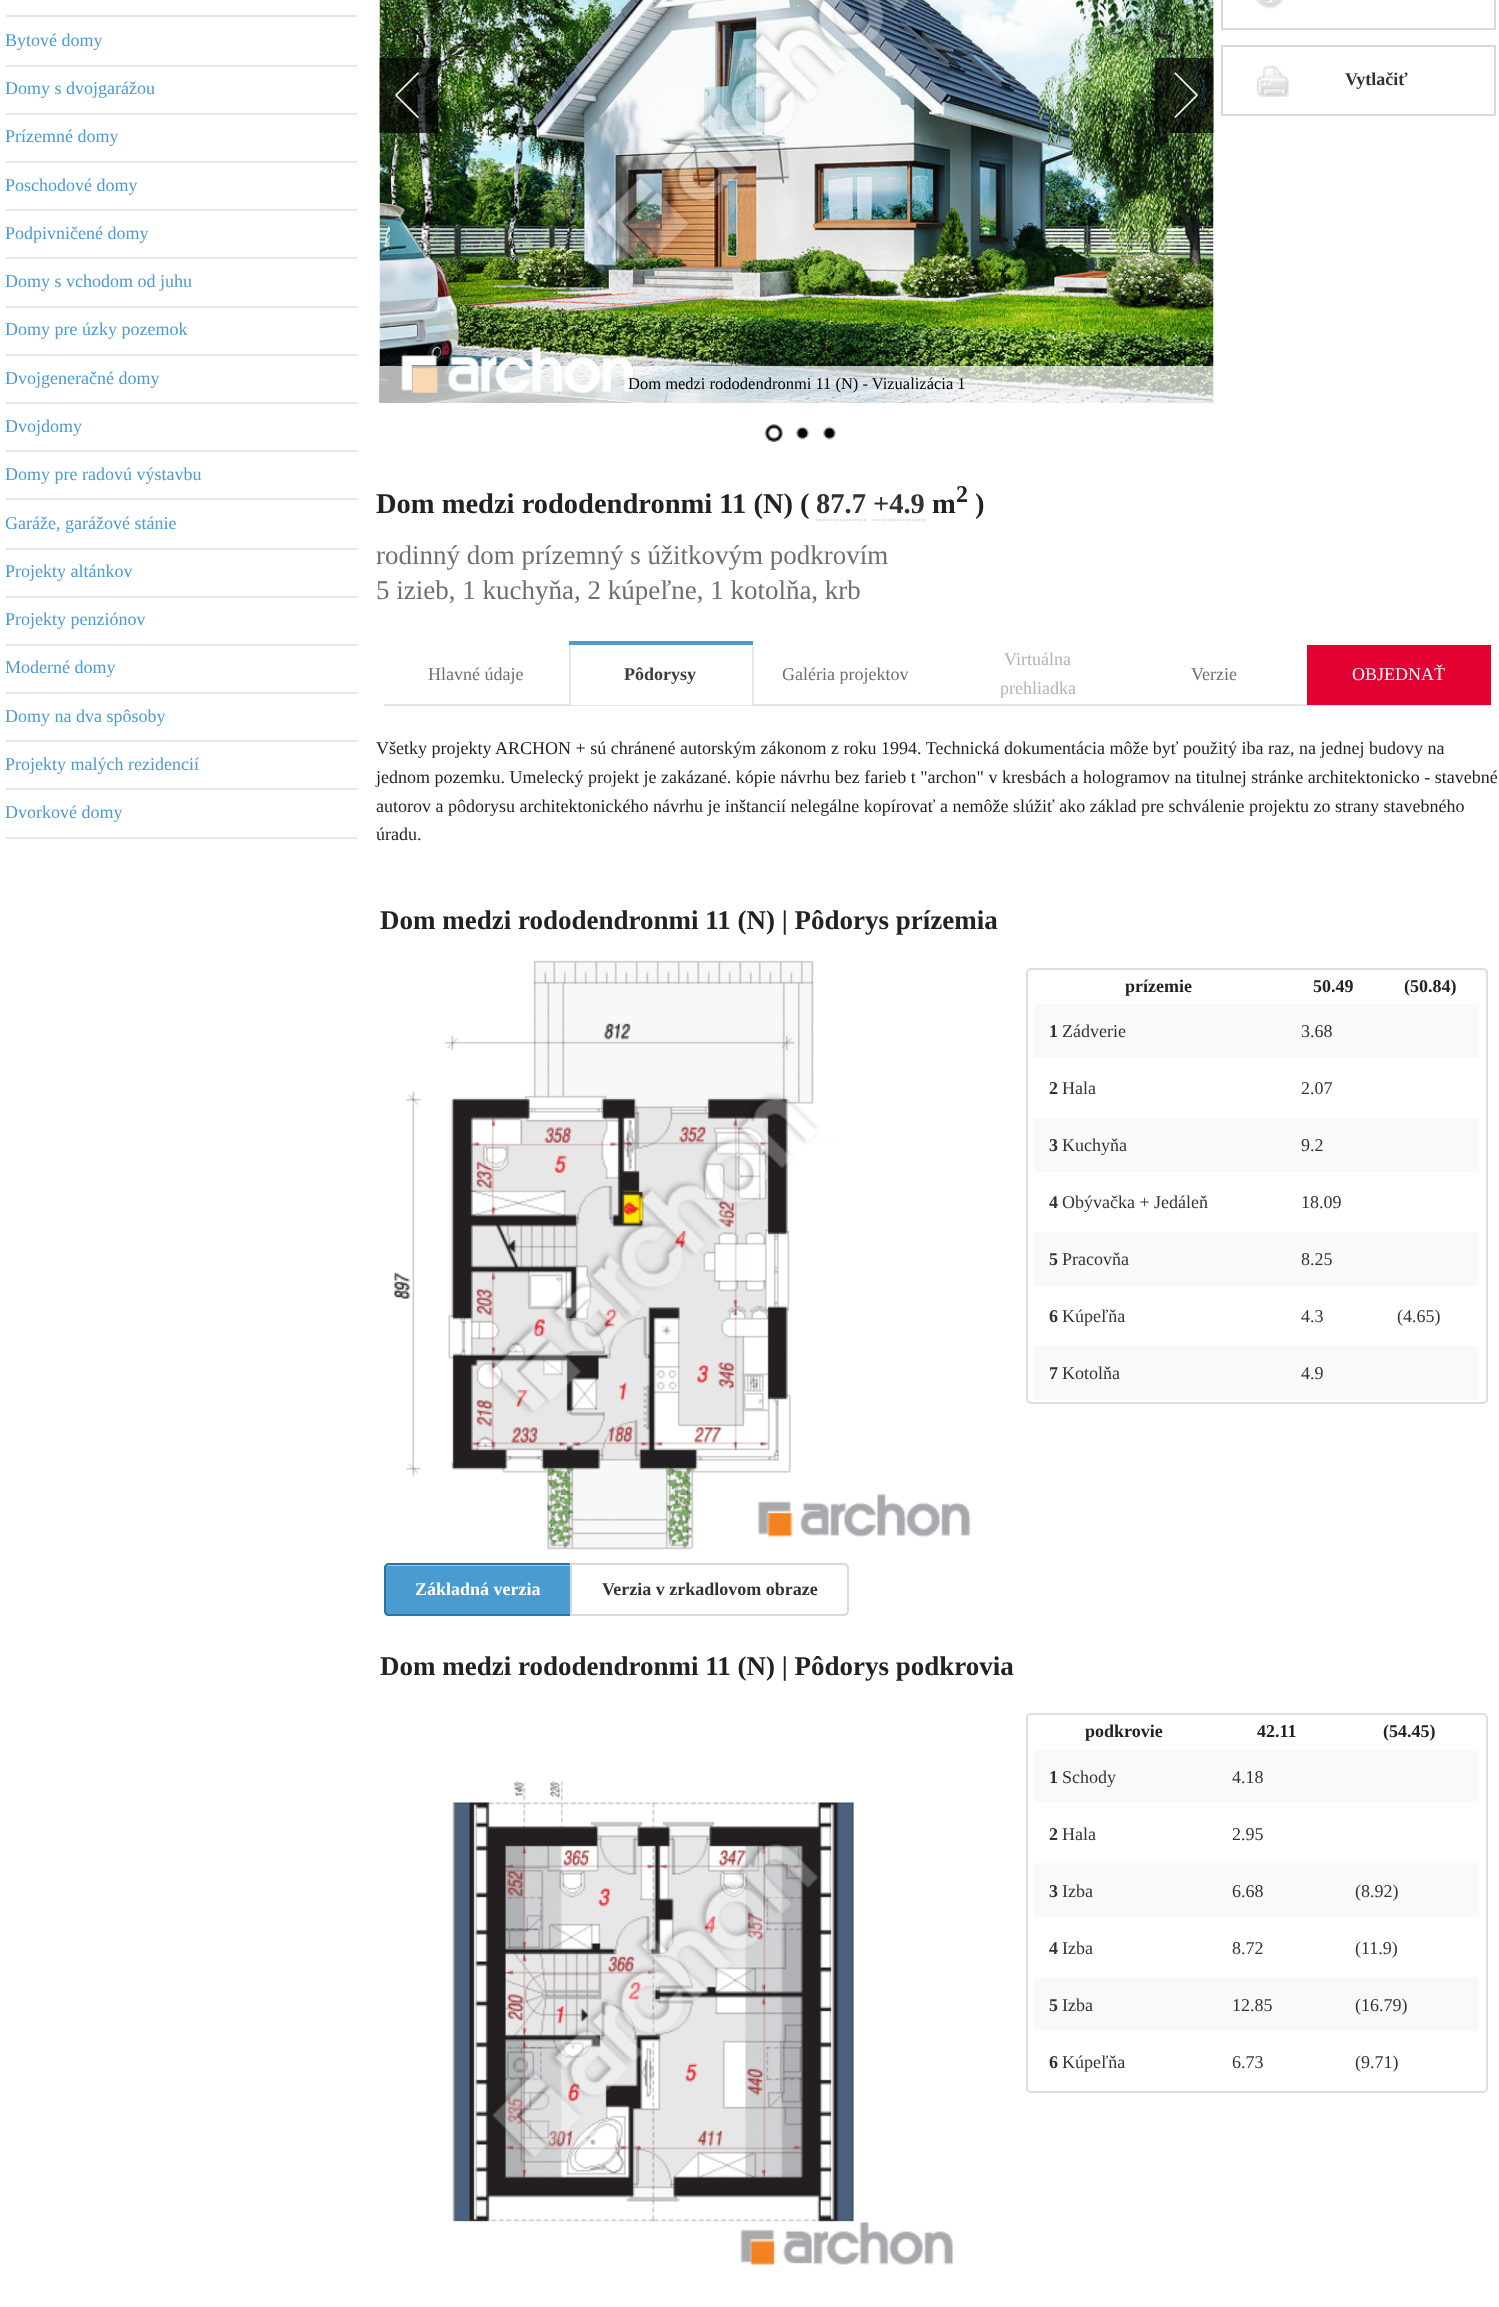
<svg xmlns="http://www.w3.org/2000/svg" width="1499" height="2307">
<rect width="100%" height="100%" fill="#fff"/>
<rect x="6" y="15" width="351" height="2" fill="#e6e6e6"/>
<text x="5" y="46" style="font-family:Liberation Serif;font-size:18px;fill:#4a9bd0">Bytové domy</text>
<rect x="6" y="65" width="351" height="2" fill="#e6e6e6"/>
<text x="5" y="94" style="font-family:Liberation Serif;font-size:18px;fill:#4a9bd0">Domy s dvojgarážou</text>
<rect x="6" y="113" width="351" height="2" fill="#e6e6e6"/>
<text x="5" y="142" style="font-family:Liberation Serif;font-size:18px;fill:#4a9bd0">Prízemné domy</text>
<rect x="6" y="161" width="351" height="2" fill="#e6e6e6"/>
<text x="5" y="191" style="font-family:Liberation Serif;font-size:18px;fill:#4a9bd0">Poschodové domy</text>
<rect x="6" y="209" width="351" height="2" fill="#e6e6e6"/>
<text x="5" y="239" style="font-family:Liberation Serif;font-size:18px;fill:#4a9bd0">Podpivničené domy</text>
<rect x="6" y="257" width="351" height="2" fill="#e6e6e6"/>
<text x="5" y="287" style="font-family:Liberation Serif;font-size:18px;fill:#4a9bd0">Domy s vchodom od juhu</text>
<rect x="6" y="306" width="351" height="2" fill="#e6e6e6"/>
<text x="5" y="335" style="font-family:Liberation Serif;font-size:18px;fill:#4a9bd0">Domy pre úzky pozemok</text>
<rect x="6" y="354" width="351" height="2" fill="#e6e6e6"/>
<text x="5" y="384" style="font-family:Liberation Serif;font-size:18px;fill:#4a9bd0">Dvojgeneračné domy</text>
<rect x="6" y="402" width="351" height="2" fill="#e6e6e6"/>
<text x="5" y="432" style="font-family:Liberation Serif;font-size:18px;fill:#4a9bd0">Dvojdomy</text>
<rect x="6" y="450" width="351" height="2" fill="#e6e6e6"/>
<text x="5" y="480" style="font-family:Liberation Serif;font-size:18px;fill:#4a9bd0">Domy pre radovú výstavbu</text>
<rect x="6" y="498" width="351" height="2" fill="#e6e6e6"/>
<text x="5" y="529" style="font-family:Liberation Serif;font-size:18px;fill:#4a9bd0">Garáže, garážové stánie</text>
<rect x="6" y="548" width="351" height="2" fill="#e6e6e6"/>
<text x="5" y="577" style="font-family:Liberation Serif;font-size:18px;fill:#4a9bd0">Projekty altánkov</text>
<rect x="6" y="596" width="351" height="2" fill="#e6e6e6"/>
<text x="5" y="625" style="font-family:Liberation Serif;font-size:18px;fill:#4a9bd0">Projekty penziónov</text>
<rect x="6" y="644" width="351" height="2" fill="#e6e6e6"/>
<text x="5" y="673" style="font-family:Liberation Serif;font-size:18px;fill:#4a9bd0">Moderné domy</text>
<rect x="6" y="692" width="351" height="2" fill="#e6e6e6"/>
<text x="5" y="722" style="font-family:Liberation Serif;font-size:18px;fill:#4a9bd0">Domy na dva spôsoby</text>
<rect x="6" y="740" width="351" height="2" fill="#e6e6e6"/>
<text x="5" y="770" style="font-family:Liberation Serif;font-size:18px;fill:#4a9bd0">Projekty malých rezidencií</text>
<rect x="6" y="788" width="351" height="2" fill="#e6e6e6"/>
<text x="5" y="818" style="font-family:Liberation Serif;font-size:18px;fill:#4a9bd0">Dvorkové domy</text>
<rect x="6" y="837" width="351" height="2" fill="#e6e6e6"/>
<rect x="1222" y="-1" width="273" height="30" fill="none" stroke="#d9d9d9" stroke-width="2"/>
<image x="1256" y="0" width="27" height="9" href="media/1.png"/>
<rect x="1222" y="46" width="273" height="69" fill="none" stroke="#d9d9d9" stroke-width="2"/>
<image x="1256" y="65" width="33" height="32" href="media/2.png"/>
<text x="1345" y="85" style="font-family:Liberation Serif;font-size:18px;font-weight:bold;fill:#333">Vytlačiť</text>
<image x="379" y="0" width="835" height="403" href="media/3.png"/>
<image x="379" y="58" width="59" height="75" href="media/4.png"/>
<image x="1155" y="58" width="59" height="75" href="media/5.png"/>
<rect x="380" y="366" width="834" height="37" fill="#ffffffb3"/>
<text x="628" y="389" style="font-family:Liberation Serif;font-size:16.5px;fill:#000">Dom medzi rododendronmi 11 (N) - Vizualizácia 1</text>
<image x="764" y="424" width="19" height="18" href="media/6.png"/>
<image x="796" y="426" width="13" height="14" href="media/7.png"/>
<image x="823" y="426" width="13" height="14" href="media/7.png"/>
<text x="376" y="513" style="font-family:Liberation Serif;font-size:28.5px;font-weight:bold;fill:#222">Dom medzi rododendronmi 11 (N) (</text>
<text x="816" y="513" style="font-family:Liberation Serif;font-size:28.5px;font-weight:bold;fill:#333">87.7 +4.9</text>
<path d="M816 520h51" fill="none" stroke="#ccc" stroke-width="1.5" stroke-dasharray="1.5 1.5"/>
<text x="932" y="513" style="font-family:Liberation Serif;font-size:28.5px;font-weight:bold;fill:#222">m</text>
<text x="956" y="502" style="font-family:Liberation Serif;font-size:24px;font-weight:bold;fill:#222">2</text>
<text x="975" y="513" style="font-family:Liberation Serif;font-size:28.5px;font-weight:bold;fill:#222">)</text>
<path d="M873 520h52.5" fill="none" stroke="#ccc" stroke-width="1.5" stroke-dasharray="1.5 1.5"/>
<text x="376" y="564" style="font-family:Liberation Serif;font-size:27px;fill:#6f6f6f">rodinný dom prízemný s úžitkovým podkrovím</text>
<text x="376" y="599" style="font-family:Liberation Serif;font-size:27px;fill:#6f6f6f">5 izieb, 1 kuchyňa, 2 kúpeľne, 1 kotolňa, krb</text>
<rect x="384" y="704" width="1107" height="2" fill="#e6e6e6"/>
<text x="428" y="680" style="font-family:Liberation Serif;font-size:18px;fill:#6f6f6f">Hlavné údaje</text>
<rect x="569" y="641" width="184" height="4" fill="#4a9bd0"/>
<rect x="571" y="704" width="181" height="1" fill="#fff"/>
<rect x="752" y="645" width="2" height="60" fill="#e6e6e6"/>
<rect x="569" y="645" width="2" height="60" fill="#e6e6e6"/>
<text x="624" y="680" style="font-family:Liberation Serif;font-size:18px;font-weight:bold;fill:#3c3c3c">Pôdorysy</text>
<text x="782" y="680" style="font-family:Liberation Serif;font-size:18px;fill:#6f6f6f">Galéria projektov</text>
<text x="1004" y="665" style="font-family:Liberation Serif;font-size:18px;fill:#b3b3b3">Virtuálna</text>
<text x="1000" y="694" style="font-family:Liberation Serif;font-size:18px;fill:#b3b3b3">prehliadka</text>
<text x="1191" y="680" style="font-family:Liberation Serif;font-size:18px;fill:#6f6f6f">Verzie</text>
<rect x="1307" y="645" width="184" height="60" fill="#e20031"/>
<text x="1352" y="680" style="font-family:Liberation Serif;font-size:18px;fill:#fff">OBJEDNAŤ</text>
<text x="376" y="754" style="font-family:Liberation Serif;font-size:18px;fill:#222">Všetky projekty ARCHON + sú chránené autorským zákonom z roku 1994. Technická dokumentácia môže byť použitý iba raz, na jednej budovy na</text>
<text x="376" y="783" style="font-family:Liberation Serif;font-size:18px;fill:#222">jednom pozemku. Umelecký projekt je zakázané. kópie návrhu bez farieb t "archon" v kresbách a hologramov na titulnej stránke architektonicko - stavebné</text>
<text x="376" y="812" style="font-family:Liberation Serif;font-size:18px;fill:#222">autorov a pôdorysu architektonického návrhu je inštancií nelegálne kopírovať a nemôže slúžiť ako základ pre schválenie projektu zo strany stavebného</text>
<text x="376" y="840" style="font-family:Liberation Serif;font-size:18px;fill:#222">úradu.</text>
<text x="380" y="929" style="font-family:Liberation Serif;font-size:27px;font-weight:bold;fill:#222">Dom medzi rododendronmi 11 (N) | Pôdorys prízemia</text>
<rect x="1027" y="969" width="460" height="434" rx="4" fill="none" stroke="#ddd" stroke-width="2"/>
<text x="1125" y="992" style="font-family:Liberation Serif;font-size:18px;font-weight:bold;fill:#222">prízemie</text>
<text x="1313" y="992" style="font-family:Liberation Serif;font-size:18px;font-weight:bold;fill:#222">50.49</text>
<text x="1404" y="992" style="font-family:Liberation Serif;font-size:18px;font-weight:bold;fill:#222">(50.84)</text>
<rect x="1034" y="1004" width="445" height="54" fill="#f9f9f9"/>
<text x="1049" y="1037" style="font-family:Liberation Serif;font-size:18px;font-weight:bold;fill:#333">1</text>
<text x="1062" y="1037" style="font-family:Liberation Serif;font-size:18px;fill:#333">Zádverie</text>
<text x="1301" y="1037" style="font-family:Liberation Serif;font-size:18px;fill:#333">3.68</text>
<text x="1049" y="1094" style="font-family:Liberation Serif;font-size:18px;font-weight:bold;fill:#333">2</text>
<text x="1062" y="1094" style="font-family:Liberation Serif;font-size:18px;fill:#333">Hala</text>
<text x="1301" y="1094" style="font-family:Liberation Serif;font-size:18px;fill:#333">2.07</text>
<rect x="1034" y="1118" width="445" height="54" fill="#f9f9f9"/>
<text x="1049" y="1151" style="font-family:Liberation Serif;font-size:18px;font-weight:bold;fill:#333">3</text>
<text x="1062" y="1151" style="font-family:Liberation Serif;font-size:18px;fill:#333">Kuchyňa</text>
<text x="1301" y="1151" style="font-family:Liberation Serif;font-size:18px;fill:#333">9.2</text>
<text x="1049" y="1208" style="font-family:Liberation Serif;font-size:18px;font-weight:bold;fill:#333">4</text>
<text x="1062" y="1208" style="font-family:Liberation Serif;font-size:18px;fill:#333">Obývačka + Jedáleň</text>
<text x="1301" y="1208" style="font-family:Liberation Serif;font-size:18px;fill:#333">18.09</text>
<rect x="1034" y="1232" width="445" height="54" fill="#f9f9f9"/>
<text x="1049" y="1265" style="font-family:Liberation Serif;font-size:18px;font-weight:bold;fill:#333">5</text>
<text x="1062" y="1265" style="font-family:Liberation Serif;font-size:18px;fill:#333">Pracovňa</text>
<text x="1301" y="1265" style="font-family:Liberation Serif;font-size:18px;fill:#333">8.25</text>
<text x="1049" y="1322" style="font-family:Liberation Serif;font-size:18px;font-weight:bold;fill:#333">6</text>
<text x="1062" y="1322" style="font-family:Liberation Serif;font-size:18px;fill:#333">Kúpeľňa</text>
<text x="1301" y="1322" style="font-family:Liberation Serif;font-size:18px;fill:#333">4.3</text>
<text x="1397" y="1322" style="font-family:Liberation Serif;font-size:18px;fill:#333">(4.65)</text>
<rect x="1034" y="1346" width="445" height="54" fill="#f9f9f9"/>
<text x="1049" y="1379" style="font-family:Liberation Serif;font-size:18px;font-weight:bold;fill:#333">7</text>
<text x="1062" y="1379" style="font-family:Liberation Serif;font-size:18px;fill:#333">Kotolňa</text>
<text x="1301" y="1379" style="font-family:Liberation Serif;font-size:18px;fill:#333">4.9</text>
<image x="394" y="960" width="577" height="590" href="media/8.png"/>
<path d="M389 1563h183v53h-183c-3 0-5-2-5-5v-43c0-3 2-5 5-5z" fill="#4a9bd0"/>
<path d="M388 1566h182v-1h-182c-2 1-2 2-2 4c0-2 1-3 2-3z" fill="#a5cde8"/>
<path d="M389 1564h182v51h-182c-2 0-4-2-4-4v-43c0-2 2-4 4-4z" fill="none" stroke="#2a73a3" stroke-width="2"/>
<text x="415" y="1595" style="font-family:Liberation Serif;font-size:18px;font-weight:bold;fill:#fff">Základná verzia</text>
<path d="M571 1564h273c2 0 4 2 4 4v43c0 2-2 4-4 4h-273z" fill="#fff" stroke="#d9d9d9" stroke-width="2"/>
<text x="602" y="1595" style="font-family:Liberation Serif;font-size:18px;font-weight:bold;fill:#333">Verzia v zrkadlovom obraze</text>
<text x="380" y="1675" style="font-family:Liberation Serif;font-size:27px;font-weight:bold;fill:#222">Dom medzi rododendronmi 11 (N) | Pôdorys podkrovia</text>
<image x="452" y="1781" width="501" height="484" href="media/9.png"/>
<rect x="1027" y="1714" width="460" height="378" rx="4" fill="none" stroke="#ddd" stroke-width="2"/>
<text x="1085" y="1737" style="font-family:Liberation Serif;font-size:18px;font-weight:bold;fill:#222">podkrovie</text>
<text x="1257" y="1737" style="font-family:Liberation Serif;font-size:18px;font-weight:bold;fill:#222">42.11</text>
<text x="1383" y="1737" style="font-family:Liberation Serif;font-size:18px;font-weight:bold;fill:#222">(54.45)</text>
<rect x="1034" y="1749" width="445" height="54" fill="#f9f9f9"/>
<text x="1049" y="1783" style="font-family:Liberation Serif;font-size:18px;font-weight:bold;fill:#333">1</text>
<text x="1062" y="1783" style="font-family:Liberation Serif;font-size:18px;fill:#333">Schody</text>
<text x="1232" y="1783" style="font-family:Liberation Serif;font-size:18px;fill:#333">4.18</text>
<text x="1049" y="1840" style="font-family:Liberation Serif;font-size:18px;font-weight:bold;fill:#333">2</text>
<text x="1062" y="1840" style="font-family:Liberation Serif;font-size:18px;fill:#333">Hala</text>
<text x="1232" y="1840" style="font-family:Liberation Serif;font-size:18px;fill:#333">2.95</text>
<rect x="1034" y="1863" width="445" height="54" fill="#f9f9f9"/>
<text x="1049" y="1897" style="font-family:Liberation Serif;font-size:18px;font-weight:bold;fill:#333">3</text>
<text x="1062" y="1897" style="font-family:Liberation Serif;font-size:18px;fill:#333">Izba</text>
<text x="1232" y="1897" style="font-family:Liberation Serif;font-size:18px;fill:#333">6.68</text>
<text x="1355" y="1897" style="font-family:Liberation Serif;font-size:18px;fill:#333">(8.92)</text>
<text x="1049" y="1954" style="font-family:Liberation Serif;font-size:18px;font-weight:bold;fill:#333">4</text>
<text x="1062" y="1954" style="font-family:Liberation Serif;font-size:18px;fill:#333">Izba</text>
<text x="1232" y="1954" style="font-family:Liberation Serif;font-size:18px;fill:#333">8.72</text>
<text x="1355" y="1954" style="font-family:Liberation Serif;font-size:18px;fill:#333">(11.9)</text>
<rect x="1034" y="1977" width="445" height="54" fill="#f9f9f9"/>
<text x="1049" y="2011" style="font-family:Liberation Serif;font-size:18px;font-weight:bold;fill:#333">5</text>
<text x="1062" y="2011" style="font-family:Liberation Serif;font-size:18px;fill:#333">Izba</text>
<text x="1232" y="2011" style="font-family:Liberation Serif;font-size:18px;fill:#333">12.85</text>
<text x="1355" y="2011" style="font-family:Liberation Serif;font-size:18px;fill:#333">(16.79)</text>
<text x="1049" y="2068" style="font-family:Liberation Serif;font-size:18px;font-weight:bold;fill:#333">6</text>
<text x="1062" y="2068" style="font-family:Liberation Serif;font-size:18px;fill:#333">Kúpeľňa</text>
<text x="1232" y="2068" style="font-family:Liberation Serif;font-size:18px;fill:#333">6.73</text>
<text x="1355" y="2068" style="font-family:Liberation Serif;font-size:18px;fill:#333">(9.71)</text>
</svg>
